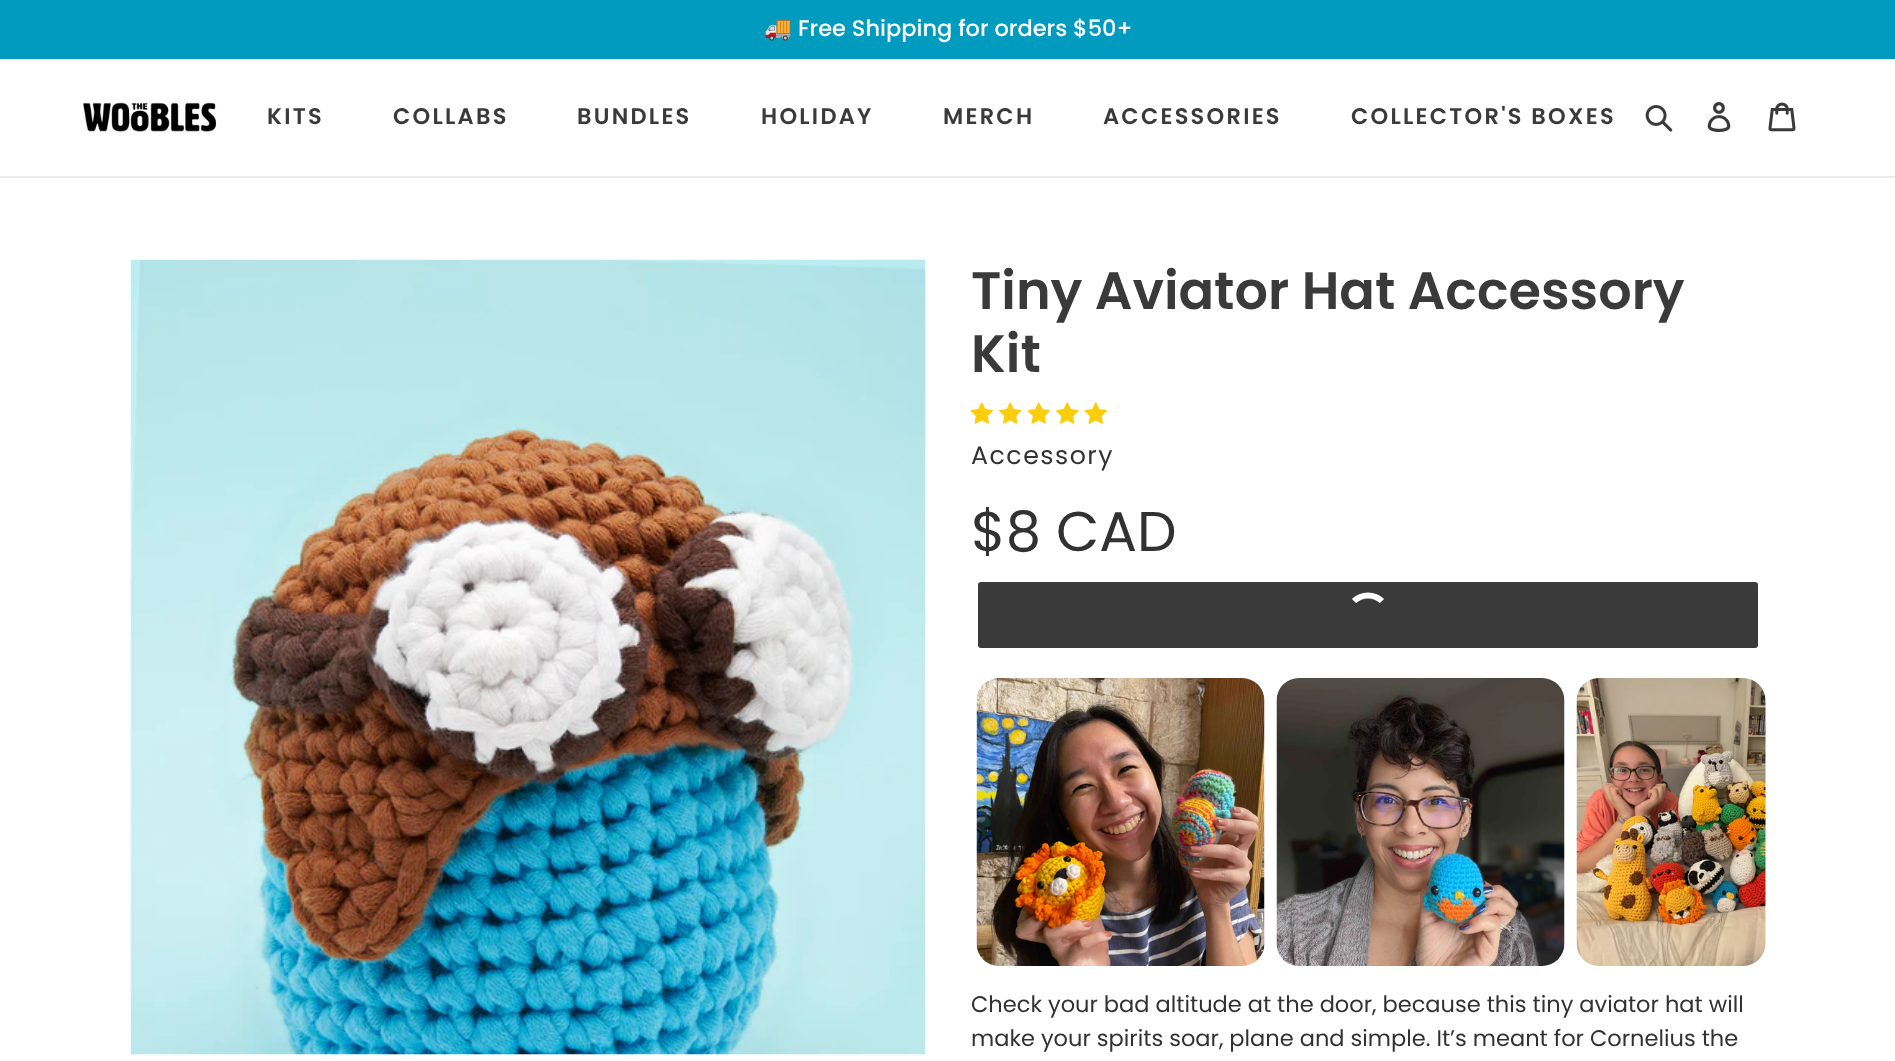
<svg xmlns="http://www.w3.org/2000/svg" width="1895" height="1061">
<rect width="100%" height="100%" fill="#fff"/>
<rect width="1895" height="59" fill="#009bbf"/>
<text x="764" y="36" style="font-family:Noto Color Emoji;font-size:22.5px;fill:#fff">🚚</text>
<text x="798" y="36" style="font-family:Poppins;font-size:22.5px;font-weight:500;fill:#fff">Free Shipping for orders $50+</text>
<rect y="176" width="1895" height="2" fill="#ebebeb"/>
<image x="83" y="102" width="134" height="30" href="media/1.png"/>
<text x="267" y="124" style="font-family:Poppins;font-size:22.5px;font-weight:600;letter-spacing:2.25px;fill:#3a3a3a">KITS</text>
<text x="393" y="124" style="font-family:Poppins;font-size:22.5px;font-weight:600;letter-spacing:2.25px;fill:#3a3a3a">COLLABS</text>
<text x="577" y="124" style="font-family:Poppins;font-size:22.5px;font-weight:600;letter-spacing:2.25px;fill:#3a3a3a">BUNDLES</text>
<text x="761" y="124" style="font-family:Poppins;font-size:22.5px;font-weight:600;letter-spacing:2.25px;fill:#3a3a3a">HOLIDAY</text>
<text x="943" y="124" style="font-family:Poppins;font-size:22.5px;font-weight:600;letter-spacing:2.25px;fill:#3a3a3a">MERCH</text>
<text x="1103" y="124" style="font-family:Poppins;font-size:22.5px;font-weight:600;letter-spacing:2.25px;fill:#3a3a3a">ACCESSORIES</text>
<text x="1351" y="124" style="font-family:Poppins;font-size:22.5px;font-weight:600;letter-spacing:2.25px;fill:#3a3a3a">COLLECTOR'S BOXES</text>
<image x="1645" y="105" width="28" height="27" href="media/2.png"/>
<image x="1707" y="102" width="24" height="30" href="media/3.png"/>
<image x="1768" y="102" width="28" height="30" href="media/4.png"/>
<image x="130" y="259" width="796" height="796" href="media/5.png"/>
<text x="971" y="309" style="font-family:Poppins;font-size:52.5px;font-weight:600;fill:#3a3a3a">Tiny Aviator Hat Accessory</text>
<text x="971" y="372" style="font-family:Poppins;font-size:52.5px;font-weight:600;fill:#3a3a3a">Kit</text>
<image x="970" y="402" width="23" height="22" href="media/6.png"/>
<image x="999" y="402" width="23" height="22" href="media/7.png"/>
<image x="1027" y="402" width="23" height="22" href="media/6.png"/>
<image x="1056" y="402" width="23" height="22" href="media/7.png"/>
<image x="1084" y="402" width="23" height="22" href="media/6.png"/>
<text x="971" y="464" style="font-family:Poppins;font-size:25.25px;letter-spacing:1.5px;fill:#333232">Accessory</text>
<text x="971" y="551" style="font-family:Poppins;font-size:56px;fill:#333232">$8 CAD</text>
<rect x="978" y="582" width="780" height="66" rx="3" fill="#3a3a3a"/>
<path d="M1354 601c7.5-7.5 20.5-7.5 28 0" fill="none" stroke="#fff" stroke-width="6"/>
<image x="976" y="678" width="289" height="288" href="media/8.png"/>
<image x="1276" y="678" width="289" height="288" href="media/9.png"/>
<image x="1576" y="678" width="190" height="288" href="media/10.png"/>
<text x="971" y="1012" style="font-family:Poppins;font-size:22.5px;fill:#333232">Check your bad altitude at the door, because this tiny aviator hat will</text>
<text x="971" y="1046" style="font-family:Poppins;font-size:22.5px;fill:#333232">make your spirits soar, plane and simple. It’s meant for Cornelius the</text>
</svg>
